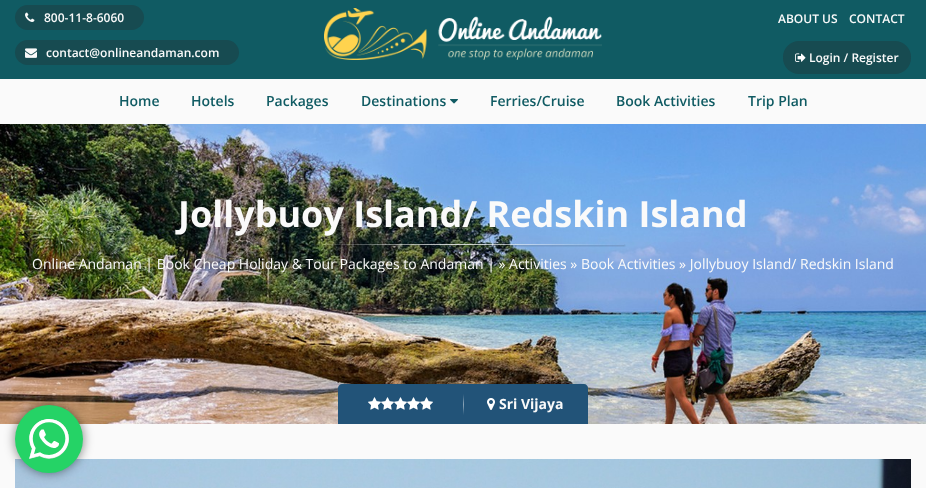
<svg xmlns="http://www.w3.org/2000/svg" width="926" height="488">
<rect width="100%" height="100%" fill="#fafafa"/>
<rect width="926" height="79" fill="#105b63"/>
<rect x="15" y="5" width="129" height="25" rx="12.5" fill="#174b51"/>
<image x="25" y="12" width="10" height="10" href="media/1.png"/>
<text x="44" y="22" style="font-family:Open Sans;font-size:12px;font-weight:600;fill:#fafafa">800-11-8-6060</text>
<rect x="15" y="40" width="224" height="25" rx="12.5" fill="#174b51"/>
<image x="25" y="48" width="12" height="10" href="media/2.png"/>
<text x="46" y="57" style="font-family:Open Sans;font-size:12px;font-weight:600;fill:#fafafa">contact@onlineandaman.com</text>
<image x="324" y="8" width="278" height="52" href="media/3.png"/>
<text x="778" y="23" style="font-family:Open Sans;font-size:12px;font-weight:600;fill:#fafafa">ABOUT US</text>
<text x="849" y="23" style="font-family:Open Sans;font-size:12px;font-weight:600;fill:#fafafa">CONTACT</text>
<rect x="783" y="41" width="128" height="33" rx="16" fill="#174b51"/>
<image x="795" y="53" width="11" height="9" href="media/4.png"/>
<text x="809" y="62" style="font-family:Open Sans;font-size:12px;font-weight:600;fill:#fafafa">Login / Register</text>
<text x="119" y="106" style="font-family:Open Sans;font-size:14px;font-weight:600;fill:#105b63">Home</text>
<text x="191" y="106" style="font-family:Open Sans;font-size:14px;font-weight:600;fill:#105b63">Hotels</text>
<text x="266" y="106" style="font-family:Open Sans;font-size:14px;font-weight:600;fill:#105b63">Packages</text>
<text x="361" y="106" style="font-family:Open Sans;font-size:14px;font-weight:600;fill:#105b63">Destinations</text>
<image x="450" y="99" width="8" height="5" href="media/5.png"/>
<text x="490" y="106" style="font-family:Open Sans;font-size:14px;font-weight:600;fill:#105b63">Ferries/Cruise</text>
<text x="616" y="106" style="font-family:Open Sans;font-size:14px;font-weight:600;fill:#105b63">Book Activities</text>
<text x="748" y="106" style="font-family:Open Sans;font-size:14px;font-weight:600;fill:#105b63">Trip Plan</text>
<image x="0" y="124" width="926" height="300" href="media/6.png"/>
<text x="178" y="227" style="font-family:Open Sans;font-size:36px;font-weight:bold;fill:#fafafa">Jollybuoy Island/ Redskin Island</text>
<image x="309" y="244" width="317" height="3" href="media/7.png"/>
<text x="32" y="269" style="font-family:Open Sans;font-size:14px;fill:#fafafa">Online Andaman | Book Cheap Holiday &amp; Tour Packages to Andaman | » Activities » Book Activities » Jollybuoy Island/ Redskin Island</text>
<path d="M342 384h242c2 0 4 2 4 4v36h-250v-36c0-2 2-4 4-4z" fill="#225378"/>
<image x="463" y="394" width="1" height="21" href="media/8.png"/>
<image x="368" y="397" width="13" height="13" href="media/9.png"/>
<image x="381" y="397" width="13" height="13" href="media/9.png"/>
<image x="394" y="397" width="13" height="13" href="media/9.png"/>
<image x="407" y="397" width="13" height="13" href="media/9.png"/>
<image x="420" y="397" width="13" height="13" href="media/9.png"/>
<image x="487" y="398" width="8" height="12" href="media/10.png"/>
<text x="499" y="409" style="font-family:Open Sans;font-size:14px;font-weight:bold;fill:#fafafa">Sri Vijaya</text>
<image x="15" y="459" width="896" height="29" href="media/12.png"/>
<rect x="15" y="405" width="68" height="68" rx="34" fill="#00000080" filter="blur(5.5px)"/>
<circle cx="49" cy="439" r="34" fill="#25d366"/>
<image x="29" y="419" width="40" height="40" href="media/11.png"/>
</svg>
